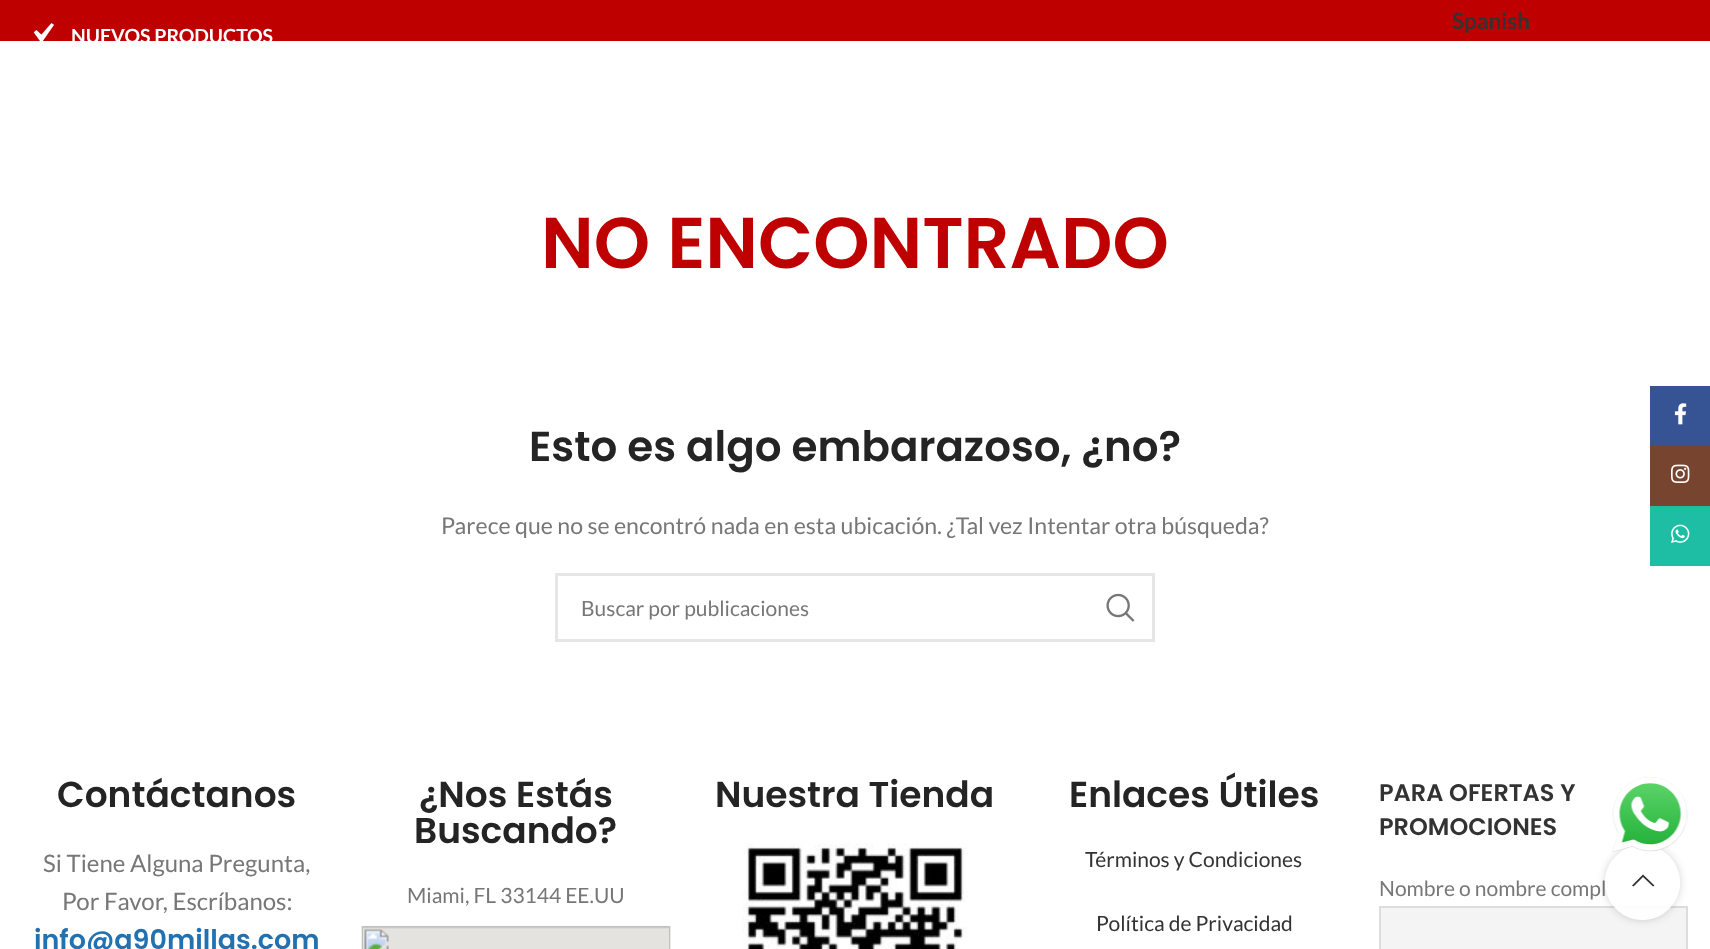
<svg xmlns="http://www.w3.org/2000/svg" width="1710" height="949">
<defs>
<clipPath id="clip1"><path d="M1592 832h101v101h-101zm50.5 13c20.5 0 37.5 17 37.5 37.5c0 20.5-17 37.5-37.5 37.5c-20.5 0-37.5-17-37.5-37.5c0-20.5 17-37.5 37.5-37.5z" clip-rule="evenodd"/></clipPath>
</defs>
<rect width="100%" height="100%" fill="#fff"/>
<rect width="1710" height="41" fill="#be0000"/>
<text x="1452" y="29" style="font-family:Lato;font-size:22.5px;font-weight:bold;fill:#333">Spanish</text>
<image x="33" y="23" width="21" height="18" href="media/1.png"/>
<text x="71" y="43" style="font-family:Lato;font-size:19.5px;font-weight:bold;fill:#fff">NUEVOS PRODUCTOS</text>
<text x="541" y="268" style="font-family:Poppins;font-size:71.75px;font-weight:600;fill:#be0000">NO ENCONTRADO</text>
<text x="529" y="461" style="font-family:Poppins;font-size:42px;font-weight:600;fill:#242424">Esto es algo embarazoso, ¿no?</text>
<text x="441" y="534" style="font-family:Lato;font-size:23.1px;fill:#777">Parece que no se encontró nada en esta ubicación. ¿Tal vez Intentar otra búsqueda?</text>
<rect x="556.5" y="574.5" width="597" height="66" fill="none" stroke="#e6e6e6" stroke-width="3"/>
<text x="581" y="616" style="font-family:Lato;font-size:21px;fill:#777">Buscar por publicaciones</text>
<image x="1106" y="593" width="29" height="29" href="media/2.png"/>
<text x="57" y="807" style="font-family:Poppins;font-size:36px;font-weight:600;fill:#242424">Contáctanos</text>
<text x="43" y="872" style="font-family:Lato;font-size:24px;fill:#777">Si Tiene Alguna Pregunta,</text>
<text x="62" y="910" style="font-family:Lato;font-size:24px;fill:#777">Por Favor, Escríbanos:</text>
<text x="34" y="949" style="font-family:Poppins;font-size:27px;font-weight:600;fill:#2271b1">info@a90millas.com</text>
<text x="419" y="807" style="font-family:Poppins;font-size:36px;font-weight:600;fill:#242424">¿Nos Estás</text>
<text x="414" y="843" style="font-family:Poppins;font-size:36px;font-weight:600;fill:#242424">Buscando?</text>
<text x="407" y="903" style="font-family:Lato;font-size:21px;fill:#777">Miami, FL 33144 EE.UU</text>
<image x="361" y="926" width="310" height="23" href="media/3.png"/>
<text x="715" y="807" style="font-family:Poppins;font-size:36px;font-weight:600;fill:#242424">Nuestra Tienda</text>
<image x="742" y="842" width="226" height="107" href="media/4.png"/>
<text x="1069" y="807" style="font-family:Poppins;font-size:36px;font-weight:600;fill:#242424">Enlaces Útiles</text>
<text x="1085" y="867" style="font-family:Lato;font-size:21px;fill:#333">Términos y Condiciones</text>
<text x="1096" y="931" style="font-family:Lato;font-size:21px;fill:#333">Política de Privacidad</text>
<text x="1379" y="801" style="font-family:Poppins;font-size:24px;font-weight:600;fill:#333">PARA OFERTAS Y</text>
<text x="1379" y="835" style="font-family:Poppins;font-size:24px;font-weight:600;fill:#333">PROMOCIONES</text>
<text x="1379" y="896" style="font-family:Lato;font-size:21px;fill:#777">Nombre o nombre compl</text>
<rect x="1380" y="907" width="307" height="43" fill="#f4f4f4" stroke="#ddd" stroke-width="2"/>
<rect x="1650" y="386" width="60" height="60" fill="#365493"/>
<image x="1674" y="403" width="13" height="22" href="media/5.png"/>
<rect x="1650" y="446" width="60" height="60" fill="#774430"/>
<image x="1671" y="464" width="19" height="19" href="media/6.png"/>
<rect x="1650" y="506" width="60" height="60" fill="#1ebea5"/>
<image x="1671" y="524" width="19" height="19" href="media/7.png"/>
<g clip-path="url(#clip1)">
<rect x="1605" y="845" width="75" height="75" rx="37.5" fill="#0000002b" filter="blur(4px)"/>
</g>
<circle cx="1642.5" cy="882.5" r="37.5" fill="#ffffffe6"/>
<image x="1612" y="777" width="76" height="75" href="media/8.png"/>
<path d="M1653 886.5l1.5-1l-11.5-11l-11 11l1.5 1l9.5-9.5z" fill="#333"/>
</svg>
